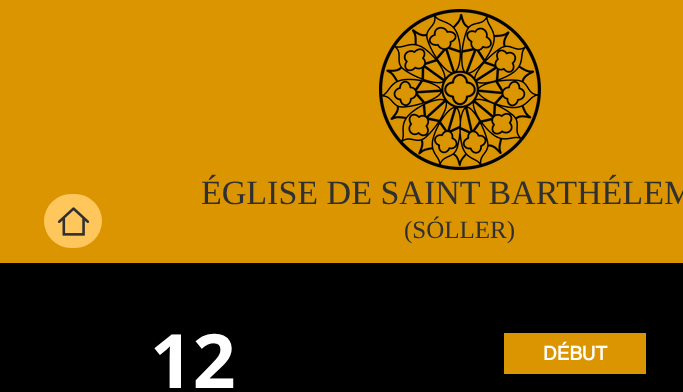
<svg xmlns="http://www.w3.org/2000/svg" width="683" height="392">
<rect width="100%" height="100%" fill="#000"/>
<rect width="683" height="263" fill="#db9500"/>
<image x="379" y="9" width="162" height="161" href="media/1.png"/>
<rect x="44" y="194" width="58" height="54" rx="27" fill="#ffc65c"/>
<image x="57" y="207" width="33" height="29" href="media/2.png"/>
<text x="201" y="204" style="font-family:Liberation Serif;font-size:34px;fill:#303030">ÉGLISE DE SAINT BARTHÉLEM</text>
<text x="404" y="238" style="font-family:Liberation Serif;font-size:25px;fill:#303030">(SÓLLER)</text>
<text x="150" y="388" style="font-family:Open Sans;font-size:75px;font-weight:bold;fill:#fff">12</text>
<rect x="504" y="333" width="142" height="41" fill="#db9500"/>
<text x="543" y="360" style="font-family:helvetica;font-size:19px;font-weight:bold;fill:#fff">DÉBUT</text>
</svg>
